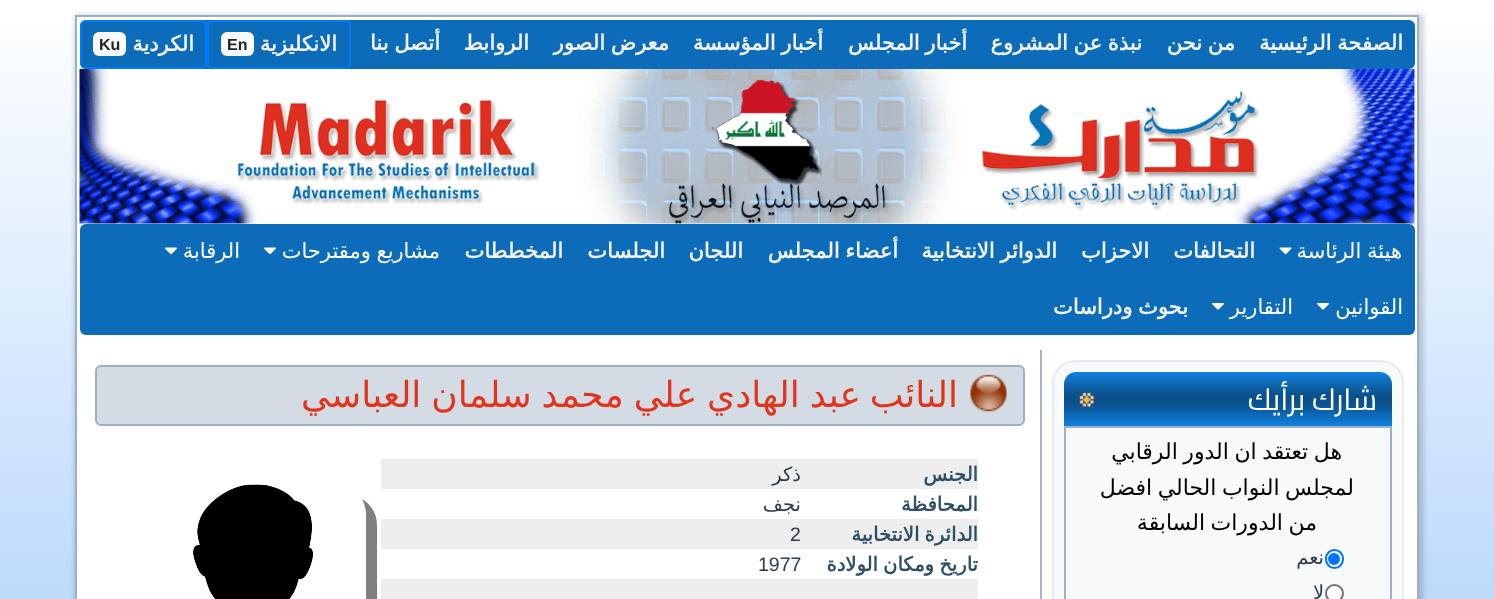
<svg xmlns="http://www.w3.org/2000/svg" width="1494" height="599">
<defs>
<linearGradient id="g1" gradientUnits="userSpaceOnUse" x1="747" y1="0" x2="747" y2="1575"><stop offset="0" stop-color="#fff"/><stop offset="1" stop-color="#519ef6"/></linearGradient>
<linearGradient id="g2" gradientUnits="userSpaceOnUse" x1="1228" y1="372" x2="1228" y2="426"><stop offset="0" stop-color="#1082e0"/><stop offset="0.4" stop-color="#0a538f"/><stop offset="0.5" stop-color="#0a508a"/><stop offset="0.6" stop-color="#0a538f"/><stop offset="1" stop-color="#1082e0"/></linearGradient>
</defs>
<rect width="100%" height="100%" fill="#fff"/>
<rect y="23" width="1494" height="576" fill="url(#g1)"/>
<rect x="74" y="14" width="1350" height="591" fill="#00000026" filter="blur(2px)"/>
<rect x="76" y="16" width="1342" height="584" fill="#fff" stroke="#9cafc4" stroke-width="2"/>
<rect x="80" y="20" width="1335" height="49" rx="6" fill="#0d6cba"/>
<text x="1403" y="50" word-spacing="-1" style="font-family:DejaVu Sans;font-size:21px;font-weight:bold;direction:rtl;fill:#f2f2f2">الصفحة الرئيسية</text>
<text x="1235" y="50" word-spacing="-1" style="font-family:DejaVu Sans;font-size:21px;font-weight:bold;direction:rtl;fill:#f2f2f2">من نحن</text>
<text x="1142" y="50" word-spacing="-1" style="font-family:DejaVu Sans;font-size:21px;font-weight:bold;direction:rtl;fill:#f2f2f2">نبذة عن المشروع</text>
<text x="967" y="50" word-spacing="-1" style="font-family:DejaVu Sans;font-size:21px;font-weight:bold;direction:rtl;fill:#f2f2f2">أخبار المجلس</text>
<text x="823" y="50" word-spacing="-1" style="font-family:DejaVu Sans;font-size:21px;font-weight:bold;direction:rtl;fill:#f2f2f2">أخبار المؤسسة</text>
<text x="669" y="50" word-spacing="-1" style="font-family:DejaVu Sans;font-size:21px;font-weight:bold;direction:rtl;fill:#f2f2f2">معرض الصور</text>
<text x="529" y="50" style="font-family:DejaVu Sans;font-size:21px;font-weight:bold;direction:rtl;fill:#f2f2f2">الروابط</text>
<text x="440" y="50" word-spacing="-1" style="font-family:DejaVu Sans;font-size:21px;font-weight:bold;direction:rtl;fill:#f2f2f2">أتصل بنا</text>
<rect x="208" y="21" width="142" height="47" rx="4" fill="none" stroke="#007bff" stroke-width="2"/>
<text x="337" y="51" style="font-family:DejaVu Sans;font-size:21px;font-weight:bold;direction:rtl;fill:#f2f2f2">الانكليزية</text>
<rect x="221" y="32" width="33" height="24" rx="6" fill="#f8f9fa"/>
<text x="227" y="50" style="font-family:Liberation Sans;font-size:16px;font-weight:bold;fill:#212529">En</text>
<path d="M86 20c-3 0-6 3-6 6v37c0 3 3 6 6 6h116c3 0 5-2 5-5v-39c0-3-2-5-5-5zm-1 2c-2 0-3 1-3 3v39c0 2 1 3 3 3h117c2 0 3-1 3-3v-39c0-2-1-3-3-3z" fill="#007bff" fill-rule="evenodd"/>
<text x="194" y="51" style="font-family:DejaVu Sans;font-size:21px;font-weight:bold;direction:rtl;fill:#f2f2f2">الكردية</text>
<rect x="93" y="32" width="33" height="24" rx="6" fill="#f8f9fa"/>
<text x="99" y="50" style="font-family:Liberation Sans;font-size:16px;font-weight:bold;fill:#212529">Ku</text>
<image x="79" y="69" width="1336" height="155" href="media/1.png"/>
<rect x="80" y="224" width="1335" height="111" rx="6" fill="#0d6cba"/>
<text x="1402" y="258" word-spacing="-1" style="font-family:DejaVu Sans;font-size:21px;direction:rtl;fill:#fff">هيئة الرئاسة</text>
<image x="1279" y="247" width="13" height="8" href="media/2.png"/>
<text x="1255" y="258" style="font-family:DejaVu Sans;font-size:21px;font-weight:bold;direction:rtl;fill:#f2f2f2">التحالفات</text>
<text x="1149" y="258" style="font-family:DejaVu Sans;font-size:21px;font-weight:bold;direction:rtl;fill:#f2f2f2">الاحزاب</text>
<text x="1057" y="258" word-spacing="-1" style="font-family:DejaVu Sans;font-size:21px;font-weight:bold;direction:rtl;fill:#f2f2f2">الدوائر الانتخابية</text>
<text x="898" y="258" word-spacing="-1" style="font-family:DejaVu Sans;font-size:21px;font-weight:bold;direction:rtl;fill:#f2f2f2">أعضاء المجلس</text>
<text x="743" y="258" style="font-family:DejaVu Sans;font-size:21px;font-weight:bold;direction:rtl;fill:#f2f2f2">اللجان</text>
<text x="665" y="258" style="font-family:DejaVu Sans;font-size:21px;font-weight:bold;direction:rtl;fill:#f2f2f2">الجلسات</text>
<text x="563" y="258" style="font-family:DejaVu Sans;font-size:21px;font-weight:bold;direction:rtl;fill:#f2f2f2">المخططات</text>
<text x="440" y="258" word-spacing="-1" style="font-family:DejaVu Sans;font-size:21px;direction:rtl;fill:#fff">مشاريع ومقترحات</text>
<image x="264" y="247" width="12" height="8" href="media/3.png"/>
<text x="240" y="258" style="font-family:DejaVu Sans;font-size:21px;direction:rtl;fill:#fff">الرقابة</text>
<image x="165" y="247" width="12" height="8" href="media/3.png"/>
<text x="1403" y="314" style="font-family:DejaVu Sans;font-size:21px;direction:rtl;fill:#fff">القوانين</text>
<image x="1317" y="303" width="12" height="7" href="media/4.png"/>
<text x="1293" y="314" style="font-family:DejaVu Sans;font-size:21px;direction:rtl;fill:#fff">التقارير</text>
<image x="1212" y="303" width="12" height="7" href="media/4.png"/>
<text x="1188" y="314" word-spacing="-1" style="font-family:DejaVu Sans;font-size:21px;font-weight:bold;direction:rtl;fill:#f2f2f2">بحوث ودراسات</text>
<rect x="1040" y="350" width="2" height="249" fill="#a3b4c8"/>
<rect x="1052" y="360" width="352" height="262" rx="23" fill="#f8f9fa"/>
<rect x="1053" y="361" width="350" height="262" rx="22" fill="none" stroke="#9cafc433" stroke-width="2"/>
<path d="M1076 372h304c6.5 0 12 5.5 12 12v42h-328v-42c0-6.5 5.5-12 12-12z" fill="url(#g2)"/>
<text x="1377" y="410" style="font-family:Cairo;font-size:30px;direction:rtl;fill:#fff">شارك برأيك</text>
<image x="1078" y="391" width="17" height="17" href="media/5.png"/>
<rect x="1065" y="427" width="326" height="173" fill="none" stroke="#9cafc4" stroke-width="2"/>
<text x="1342" y="459" word-spacing="-1.5" style="font-family:DejaVu Sans;font-size:22px;direction:rtl;fill:#000">هل تعتقد ان الدور الرقابي</text>
<text x="1354" y="495" word-spacing="-1.5" style="font-family:DejaVu Sans;font-size:22px;direction:rtl;fill:#000">لمجلس النواب الحالي افضل</text>
<text x="1317" y="530" word-spacing="-1.5" style="font-family:DejaVu Sans;font-size:22px;direction:rtl;fill:#000">من الدورات السابقة</text>
<rect x="1326" y="550" width="17" height="18" rx="8.5" fill="#fff" stroke="#0075ff" stroke-width="2"/>
<circle cx="1334" cy="559" r="6" fill="#0075ff"/>
<text x="1324" y="564" style="font-family:DejaVu Sans;font-size:19.5px;direction:rtl;fill:#2e3d4c">نعم</text>
<circle cx="1334.5" cy="593.5" r="8.5" fill="#fff" stroke="#767676" stroke-width="2"/>
<text x="1324" y="599" style="font-family:DejaVu Sans;font-size:19.5px;direction:rtl;fill:#2e3d4c">لا</text>
<rect x="96" y="366" width="928" height="59" rx="5" fill="#d3dbe4" stroke="#9cafc4" stroke-width="2"/>
<image x="970" y="374" width="37" height="38" href="media/6.png"/>
<text x="958" y="407" style="font-family:DejaVu Sans;font-size:36px;direction:rtl;fill:#e2341d">النائب</text>
<text x="861" y="407" word-spacing="-1.5" style="font-family:DejaVu Sans;font-size:36px;direction:rtl;fill:#e2341d">عبد الهادي علي محمد سلمان العباسي</text>
<rect x="381" y="459" width="597" height="30" fill="#eee"/>
<text x="978" y="481" style="font-family:DejaVu Sans;font-size:19.5px;font-weight:bold;direction:rtl;fill:#2e5066">الجنس</text>
<text x="801" y="481" style="font-family:DejaVu Sans;font-size:19.5px;direction:rtl;fill:#2e3d4c">ذكر</text>
<text x="978" y="511" style="font-family:DejaVu Sans;font-size:19.5px;font-weight:bold;direction:rtl;fill:#2e5066">المحافظة</text>
<text x="801" y="511" style="font-family:DejaVu Sans;font-size:19.5px;direction:rtl;fill:#2e3d4c">نجف</text>
<rect x="381" y="519" width="597" height="30" fill="#eee"/>
<text x="978" y="541" word-spacing="-1" style="font-family:DejaVu Sans;font-size:19.5px;font-weight:bold;direction:rtl;fill:#2e5066">الدائرة الانتخابية</text>
<text x="790" y="541" style="font-family:Liberation Sans;font-size:19.5px;fill:#2e3d4c">2</text>
<text x="978" y="571" word-spacing="-1" style="font-family:DejaVu Sans;font-size:19.5px;font-weight:bold;direction:rtl;fill:#2e5066">تاريخ ومكان الولادة</text>
<text x="758" y="571" style="font-family:Liberation Sans;font-size:19.5px;fill:#2e3d4c">1977</text>
<rect x="381" y="579" width="597" height="20" fill="#eee"/>
<path d="M156 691c6 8 15 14 26 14h165c17 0 30-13 30-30v-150c0-11-6-21-15-26c2 4 4 10 4 15v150c0 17-13 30-30 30h-165c-5 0-10-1-15-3z" fill="#808080"/>
<image x="193" y="484" width="121" height="115" href="media/7.png"/>
</svg>
